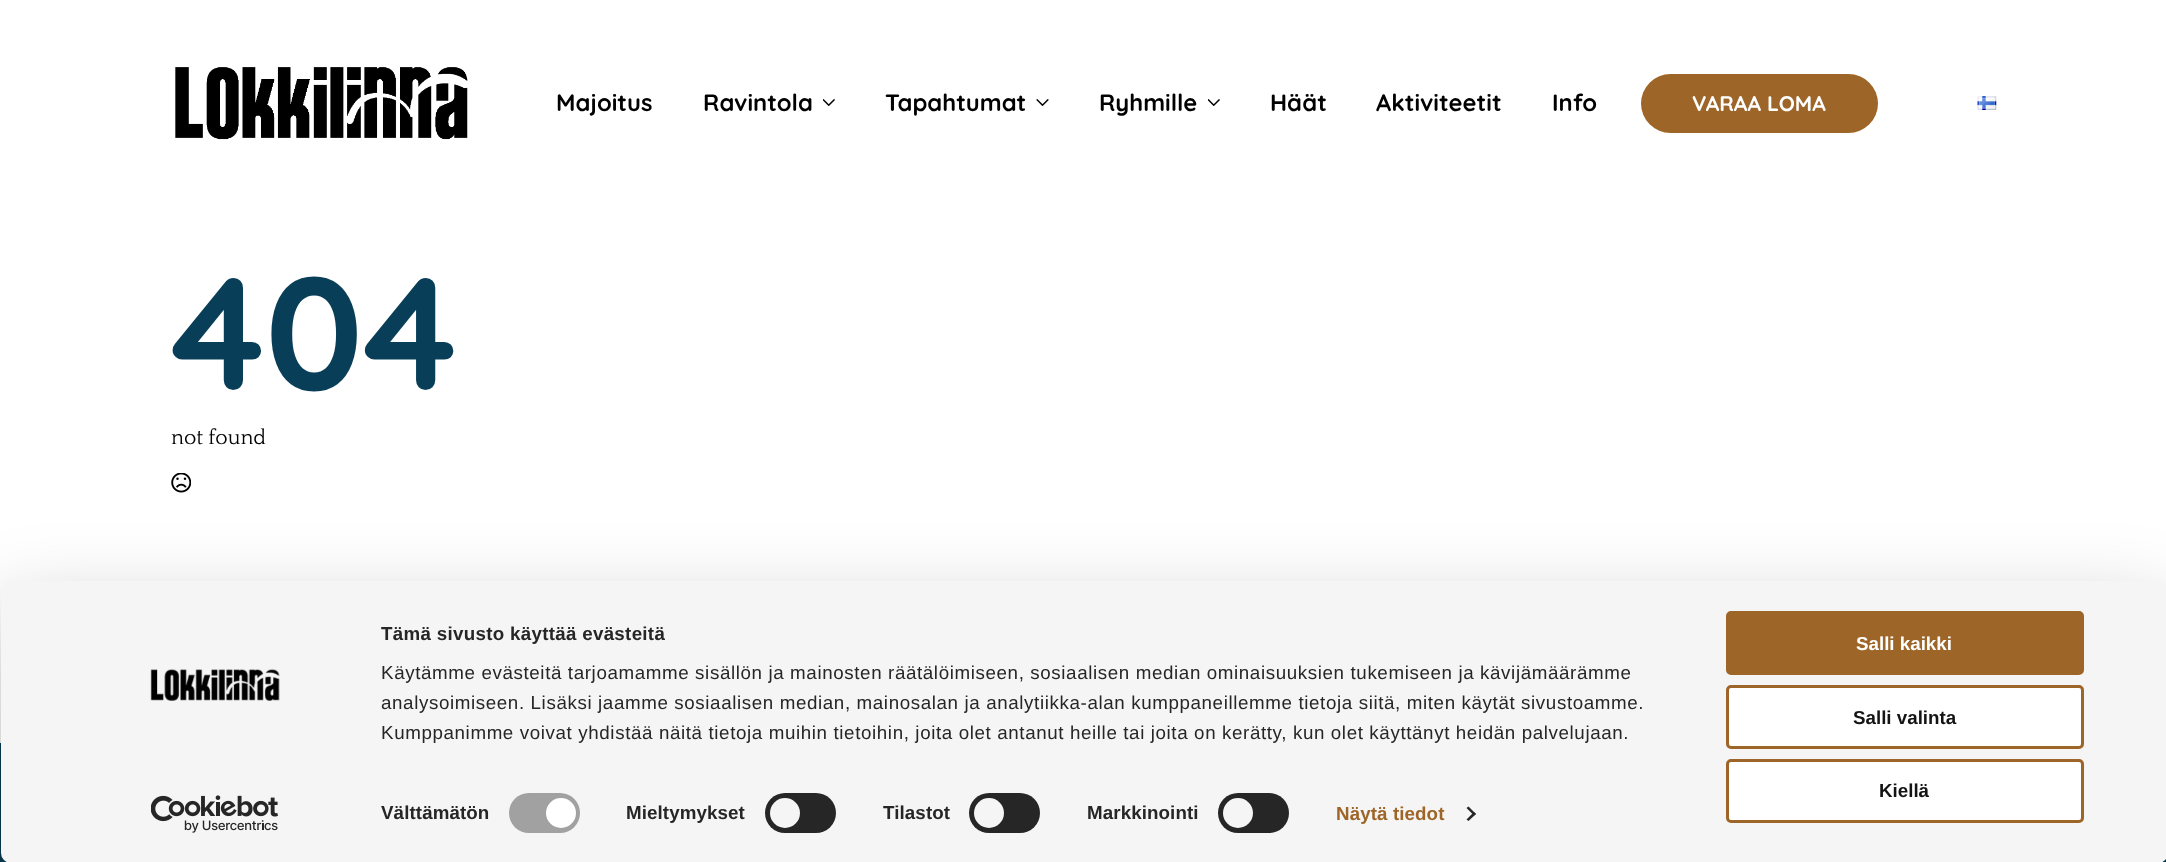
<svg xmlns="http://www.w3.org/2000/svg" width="2166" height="862">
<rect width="100%" height="100%" fill="#fff"/>
<image x="175" y="67" width="293" height="73" href="media/1.png"/>
<text x="556" y="111" style="font-family:Quicksand;font-size:23.75px;font-weight:bold;fill:#000">Majoitus</text>
<text x="703" y="111" style="font-family:Quicksand;font-size:23.75px;font-weight:bold;fill:#000">Ravintola</text>
<image x="823" y="99" width="12" height="7" href="media/2.png"/>
<text x="885" y="111" style="font-family:Quicksand;font-size:23.75px;font-weight:bold;fill:#000">Tapahtumat</text>
<image x="1036" y="99" width="13" height="7" href="media/3.png"/>
<text x="1099" y="111" style="font-family:Quicksand;font-size:23.75px;font-weight:bold;fill:#000">Ryhmille</text>
<image x="1208" y="99" width="12" height="7" href="media/2.png"/>
<text x="1270" y="111" style="font-family:Quicksand;font-size:23.75px;font-weight:bold;fill:#000">Häät</text>
<text x="1376" y="111" style="font-family:Quicksand;font-size:23.75px;font-weight:bold;fill:#000">Aktiviteetit</text>
<text x="1552" y="111" style="font-family:Quicksand;font-size:23.75px;font-weight:bold;fill:#000">Info</text>
<rect x="1641" y="74" width="237" height="59" rx="29.5" fill="#9e6528"/>
<text x="1692" y="111" style="font-family:Quicksand;font-size:21.25px;font-weight:bold;fill:#fff">VARAA LOMA</text>
<image x="1977" y="96" width="20" height="14" href="media/4.png"/>
<text x="171" y="390" style="font-family:Quicksand;font-size:160px;font-weight:bold;fill:#083e57">404</text>
<text x="171" y="444" style="font-family:Quattrocento;font-size:21.25px;fill:#000">not found</text>
<image x="171" y="473" width="20" height="20" href="media/5.png"/>
<rect y="743" width="2166" height="119" fill="#083e57"/>
<rect x="1" y="619" width="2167" height="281" rx="10" fill="#0000004d" filter="blur(44px)"/>
<rect x="1" y="581" width="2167" height="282" rx="10" fill="#f5f5f5"/>
<image x="150" y="669" width="130" height="32" href="media/6.png"/>
<image x="151" y="795" width="127" height="38" href="media/7.png"/>
<text x="381" y="640" style="font-family:Liberation Sans;font-size:18.75px;font-weight:bold;letter-spacing:0.3px;fill:#262626">Tämä sivusto käyttää evästeitä</text>
<text x="381" y="679" style="font-family:Liberation Sans;font-size:18.75px;letter-spacing:0.62px;fill:#262626">Käytämme evästeitä tarjoamamme sisällön ja mainosten räätälöimiseen, sosiaalisen median ominaisuuksien tukemiseen ja kävijämäärämme</text>
<text x="381" y="709" style="font-family:Liberation Sans;font-size:18.75px;letter-spacing:0.62px;fill:#262626">analysoimiseen. Lisäksi jaamme sosiaalisen median, mainosalan ja analytiikka-alan kumppaneillemme tietoja siitä, miten käytät sivustoamme.</text>
<text x="381" y="739" style="font-family:Liberation Sans;font-size:18.75px;letter-spacing:0.62px;fill:#262626">Kumppanimme voivat yhdistää näitä tietoja muihin tietoihin, joita olet antanut heille tai joita on kerätty, kun olet käyttänyt heidän palvelujaan.</text>
<text x="381" y="819" style="font-family:Liberation Sans;font-size:18.75px;font-weight:bold;letter-spacing:0.1px;fill:#262626">Välttämätön</text>
<rect x="509" y="793" width="71" height="40" rx="20" fill="#a1a1a1"/>
<circle cx="561" cy="813" r="15" fill="#fff"/>
<text x="626" y="819" style="font-family:Liberation Sans;font-size:18.75px;font-weight:bold;letter-spacing:0.1px;fill:#262626">Mieltymykset</text>
<rect x="765" y="793" width="71" height="40" rx="20" fill="#262626"/>
<circle cx="785" cy="813" r="15" fill="#f5f5f5"/>
<text x="883" y="819" style="font-family:Liberation Sans;font-size:18.75px;font-weight:bold;letter-spacing:0.1px;fill:#262626">Tilastot</text>
<rect x="969" y="793" width="71" height="40" rx="20" fill="#262626"/>
<circle cx="989" cy="813" r="15" fill="#f5f5f5"/>
<text x="1087" y="819" style="font-family:Liberation Sans;font-size:18.75px;font-weight:bold;letter-spacing:0.1px;fill:#262626">Markkinointi</text>
<rect x="1218" y="793" width="71" height="40" rx="20" fill="#262626"/>
<circle cx="1238" cy="813" r="15" fill="#f5f5f5"/>
<text x="1336" y="820" style="font-family:Liberation Sans;font-size:18.75px;font-weight:bold;letter-spacing:0.1px;fill:#9e6528">Näytä tiedot</text>
<path d="M1468.5 806.5l7.5 7.5l-2 1.5l-7.5-7.5z" fill="#262626"/>
<path d="M1474 812l2 2l-7.5 7l-2-1.5z" fill="#262626"/>
<rect x="1727.5" y="612.5" width="355" height="61" rx="3.5" fill="#9e6528" stroke="#9e6528" stroke-width="3"/>
<text x="1856" y="650" style="font-family:Liberation Sans;font-size:18.75px;font-weight:bold;fill:#fff">Salli kaikki</text>
<rect x="1727.5" y="686.5" width="355" height="61" rx="3.5" fill="#fff" stroke="#9e6528" stroke-width="3"/>
<text x="1853" y="724" style="font-family:Liberation Sans;font-size:18.75px;font-weight:bold;fill:#141414">Salli valinta</text>
<rect x="1727.5" y="760.5" width="355" height="61" rx="3.5" fill="#fff" stroke="#9e6528" stroke-width="3"/>
<text x="1879" y="797" style="font-family:Liberation Sans;font-size:18.75px;font-weight:bold;fill:#141414">Kiellä</text>
</svg>
